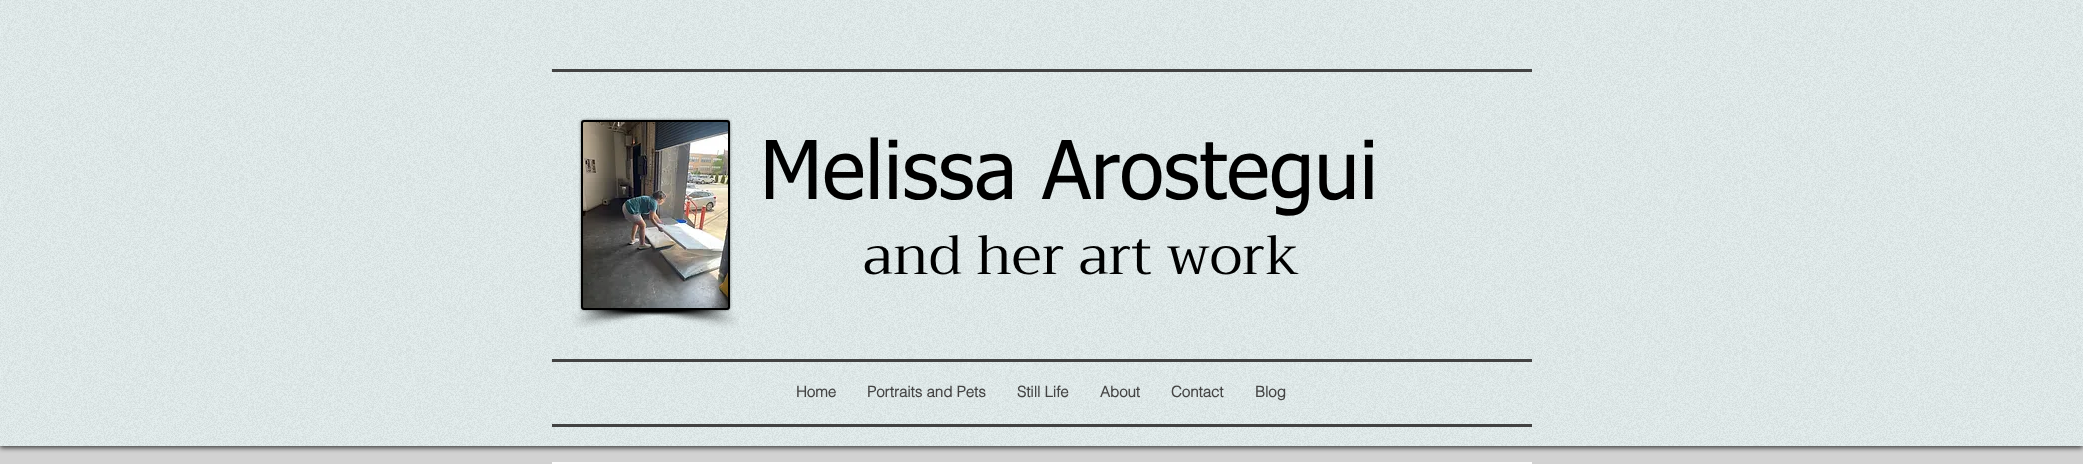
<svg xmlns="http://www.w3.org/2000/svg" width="2083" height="464">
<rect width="100%" height="100%" fill="#d2d2d2"/>
<rect y="2" width="2083" height="446" fill="#000000b3" filter="blur(2.5px)"/>
<rect width="2083" height="446" fill="#e4eeee"/>
<image x="0" y="0" width="2083" height="446" href="media/1.png"/>
<rect x="552" y="69" width="980" height="3" fill="#424242"/>
<rect x="581" y="120" width="149" height="190" rx="3" fill="#00000080" filter="blur(1.5px)"/>
<rect x="582" y="121" width="147" height="188" rx="2" fill="#000" stroke="#000" stroke-width="2"/>
<image x="583" y="122" width="145" height="186" href="media/2.png"/>
<image x="572" y="310" width="154" height="18" href="media/3.png"/>
<image x="585" y="310" width="154" height="18" href="media/4.png"/>
<text x="760" y="199" style="font-family:tahoma;font-size:81px;fill:#000">Melissa Arostegui</text>
<text x="863" y="274" style="font-family:Trirong;font-size:55px;fill:#000">and her art work</text>
<rect x="552" y="359" width="980" height="3" fill="#424242"/>
<text x="796" y="397" style="font-family:helvetica;font-size:15px;font-weight:bold;fill:#444">Home</text>
<text x="867" y="397" style="font-family:helvetica;font-size:15px;font-weight:bold;fill:#444">Portraits and Pets</text>
<text x="1017" y="397" style="font-family:helvetica;font-size:15px;font-weight:bold;fill:#444">Still Life</text>
<text x="1100" y="397" style="font-family:helvetica;font-size:15px;font-weight:bold;fill:#444">About</text>
<text x="1171" y="397" style="font-family:helvetica;font-size:15px;font-weight:bold;fill:#444">Contact</text>
<text x="1255" y="397" style="font-family:helvetica;font-size:15px;font-weight:bold;fill:#444">Blog</text>
<rect x="552" y="424" width="980" height="3" fill="#424242"/>
<rect x="552" y="462" width="980" height="2" fill="#fff"/>
</svg>
